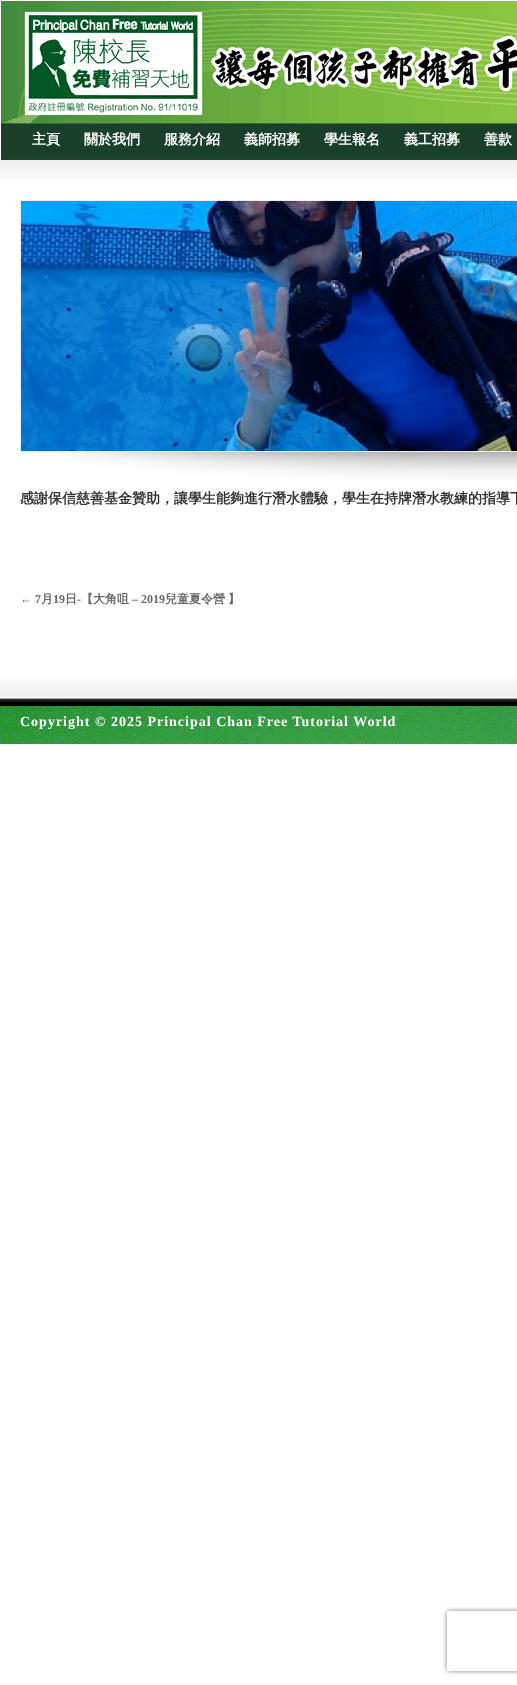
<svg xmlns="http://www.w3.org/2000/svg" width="517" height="1685">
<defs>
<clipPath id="clip1"><path d="M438 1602h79v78h-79zm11 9h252c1 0 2 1 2 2v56c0 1-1 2-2 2h-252c-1 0-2-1-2-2v-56c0-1 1-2 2-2z" clip-rule="evenodd"/></clipPath>
</defs>
<rect width="100%" height="100%" fill="#fff"/>
<image x="1" y="1" width="516" height="159" href="media/1.png"/>
<text x="32" y="144" style="font-family:WenQuanYi Zen Hei;font-size:14px;font-weight:bold;fill:#fff">主頁</text>
<text x="84" y="144" style="font-family:WenQuanYi Zen Hei;font-size:14px;font-weight:bold;fill:#fff">關於我們</text>
<text x="164" y="144" style="font-family:WenQuanYi Zen Hei;font-size:14px;font-weight:bold;fill:#fff">服務介紹</text>
<text x="244" y="144" style="font-family:WenQuanYi Zen Hei;font-size:14px;font-weight:bold;fill:#fff">義師招募</text>
<text x="324" y="144" style="font-family:WenQuanYi Zen Hei;font-size:14px;font-weight:bold;fill:#fff">學生報名</text>
<text x="404" y="144" style="font-family:WenQuanYi Zen Hei;font-size:14px;font-weight:bold;fill:#fff">義工招募</text>
<text x="484" y="144" style="font-family:WenQuanYi Zen Hei;font-size:14px;font-weight:bold;fill:#fff">善款</text>
<image x="0" y="160" width="517" height="19" href="media/2.png"/>
<rect x="20.5" y="200.5" width="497" height="251" fill="none" stroke="#eee"/>
<image x="21" y="201" width="496" height="250" href="media/3.png"/>
<image x="59" y="452" width="458" height="28" href="media/4.png"/>
<text x="20" y="503" style="font-family:WenQuanYi Zen Hei;font-size:14px;font-weight:bold;fill:#333">感謝保信慈善基金贊助，讓學生能夠進行潛水體驗，學生在持牌潛水教練的指導下</text>
<text x="20" y="603" style="font-family:Liberation Serif;font-size:12px;font-weight:bold;fill:#666">← 7</text>
<text x="41" y="603" style="font-family:WenQuanYi Zen Hei;font-size:12px;font-weight:bold;fill:#666">月</text>
<text x="53" y="603" style="font-family:Liberation Serif;font-size:12px;font-weight:bold;fill:#666">19</text>
<text x="65" y="603" style="font-family:WenQuanYi Zen Hei;font-size:12px;font-weight:bold;fill:#666">日</text>
<text x="77" y="603" style="font-family:Liberation Serif;font-size:12px;font-weight:bold;fill:#666">-</text>
<text x="81" y="603" style="font-family:WenQuanYi Zen Hei;font-size:12px;font-weight:bold;fill:#666">【大角咀</text>
<text x="132" y="603" style="font-family:Liberation Serif;font-size:12px;font-weight:bold;fill:#666">– 2019</text>
<text x="165" y="603" style="font-family:WenQuanYi Zen Hei;font-size:12px;font-weight:bold;fill:#666">兒童夏令營</text>
<text x="228" y="603" style="font-family:WenQuanYi Zen Hei;font-size:12px;font-weight:bold;fill:#666">】</text>
<image x="0" y="679" width="517" height="20" href="media/5.png"/>
<image x="0" y="699" width="517" height="45" href="media/6.png"/>
<image x="0" y="700" width="517" height="44" href="media/7.png"/>
<text x="20" y="726" style="font-family:Liberation Serif;font-size:14px;font-weight:bold;letter-spacing:1px;fill:#fff">Copyright © 2025 Principal Chan Free Tutorial World</text>
<g clip-path="url(#clip1)">
<rect x="447" y="1611" width="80" height="60" rx="2" fill="#808080" filter="blur(2.5px)"/>
</g>
</svg>
